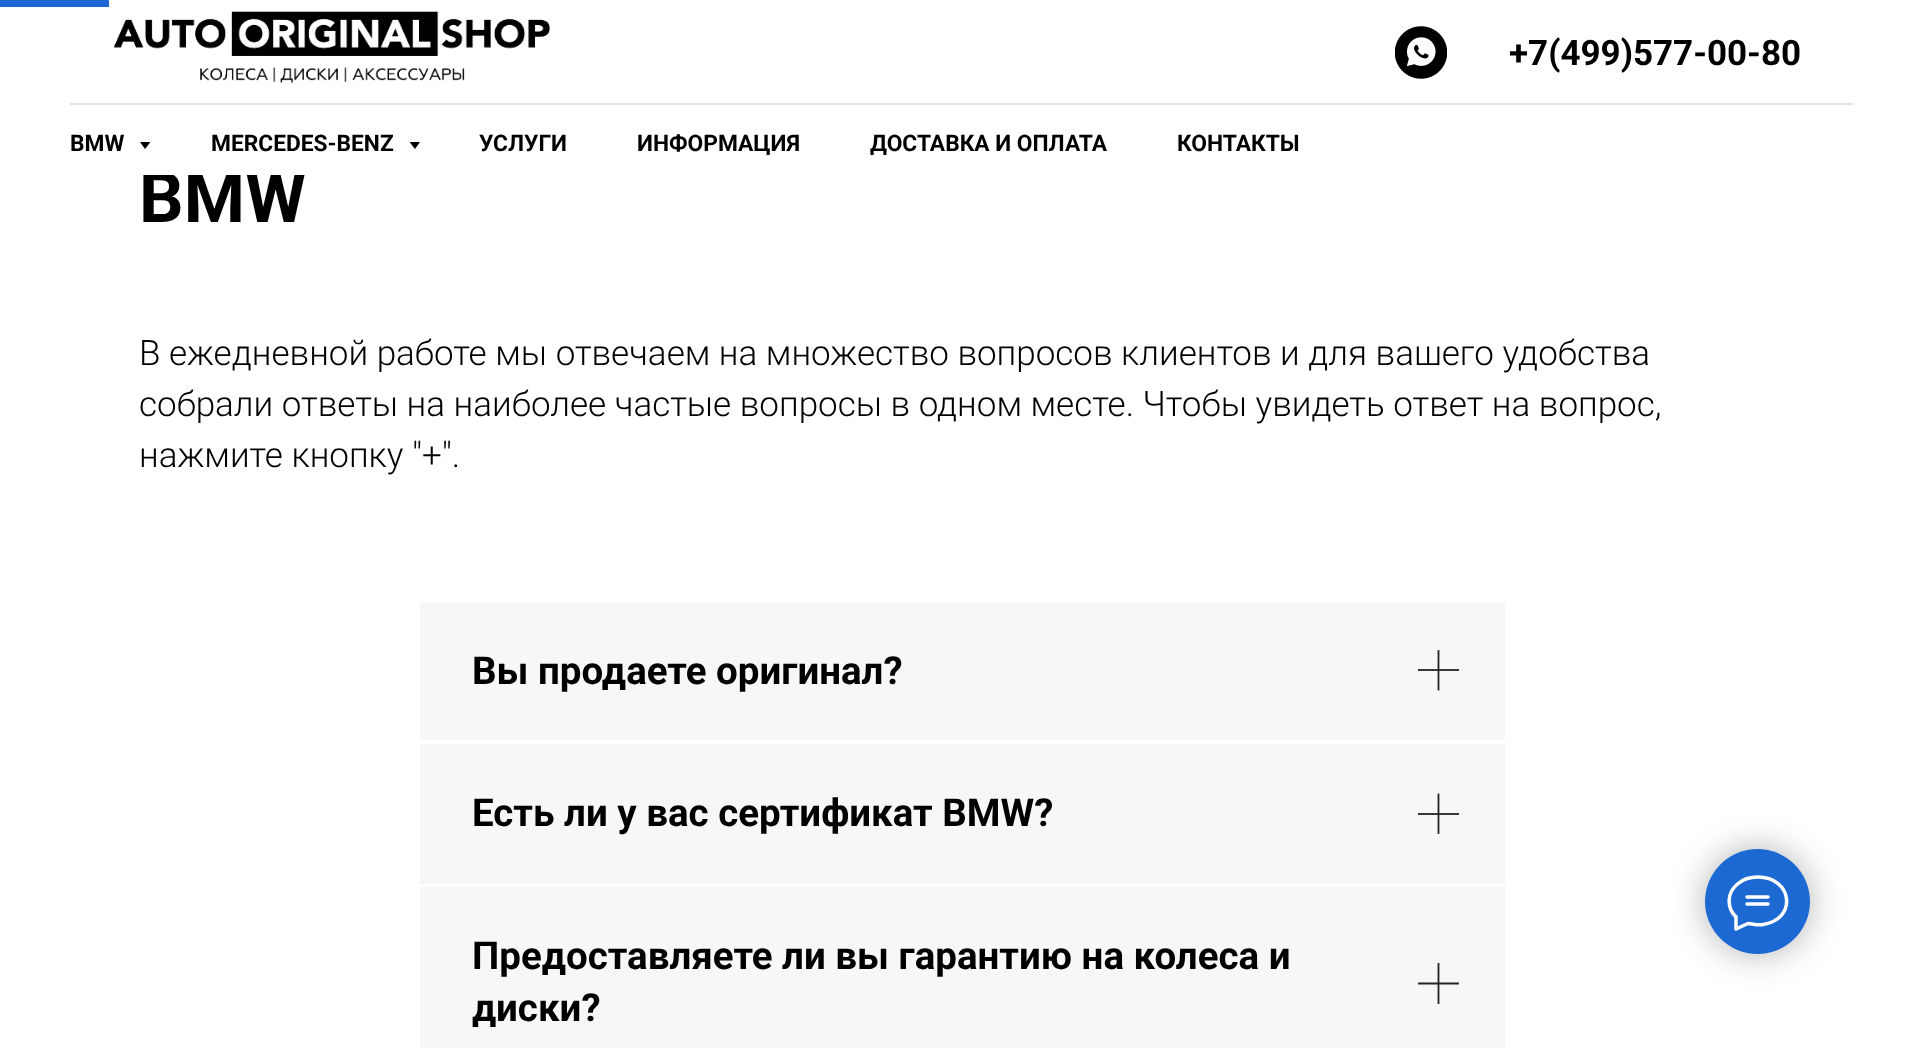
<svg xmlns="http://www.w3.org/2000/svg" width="1923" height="1048">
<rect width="100%" height="100%" fill="#fff"/>
<rect width="109" height="7" fill="#1c69d4"/>
<text x="139" y="222" style="font-family:Roboto;font-size:70px;font-weight:bold;fill:#000">BMW</text>
<rect x="143" y="172" width="163" height="3" fill="#fff"/>
<image x="113" y="11" width="437" height="72" href="media/1.png"/>
<image x="1395" y="26" width="52" height="53" href="media/2.png"/>
<text x="1509" y="65" style="font-family:Roboto;font-size:35px;font-weight:bold;fill:#000">+7(499)577-00-80</text>
<rect x="70" y="103" width="1783" height="2" fill="#e2e2e2"/>
<text x="70" y="151" style="font-family:Roboto;font-size:22.75px;font-weight:bold;fill:#000">BMW</text>
<path d="M140 142h10.5l-5.5 7z" fill="#000"/>
<text x="211" y="151" style="font-family:Roboto;font-size:22.75px;font-weight:bold;fill:#000">MERCEDES-BENZ</text>
<path d="M409.5 142h10.5l-5 7z" fill="#000"/>
<text x="479" y="151" style="font-family:Roboto;font-size:22.75px;font-weight:bold;fill:#000">УСЛУГИ</text>
<text x="637" y="151" style="font-family:Roboto;font-size:22.75px;font-weight:bold;fill:#000">ИНФОРМАЦИЯ</text>
<text x="870" y="151" style="font-family:Roboto;font-size:22.75px;font-weight:bold;fill:#000">ДОСТАВКА И ОПЛАТА</text>
<text x="1177" y="151" style="font-family:Roboto;font-size:22.75px;font-weight:bold;fill:#000">КОНТАКТЫ</text>
<rect x="1705" y="849" width="105" height="105" rx="52.5" fill="#0000004d" filter="blur(17.5px)"/>
<circle cx="1757.5" cy="901.5" r="52.5" fill="#1c69d4"/>
<path d="M1747 897h21m-21 7h21m-32.5 12.5c-9-9.5-8.5-24 2-32.5c5.5-5 13-7 20.5-7c34 0 40 41.5 5.5 47.5c-6 1-9.5-.5-15.5-1l-12 5.5v-12.5z" fill="none" stroke="#fff" stroke-width="3.5" stroke-linecap="round" stroke-linejoin="round"/>
<text x="139" y="365" style="font-family:Roboto;font-size:35px;font-weight:300;fill:#000">В ежедневной работе мы отвечаем на множество вопросов клиентов и для вашего удобства</text>
<text x="139" y="416" style="font-family:Roboto;font-size:35px;font-weight:300;fill:#000">собрали ответы на наиболее частые вопросы в одном месте. Чтобы увидеть ответ на вопрос,</text>
<text x="139" y="467" style="font-family:Roboto;font-size:35px;font-weight:300;fill:#000">нажмите кнопку "+".</text>
<rect x="420" y="602" width="1085" height="138" fill="#f7f7f7"/>
<text x="472" y="684" style="font-family:Roboto;font-size:38.5px;font-weight:bold;fill:#000">Вы продаете оригинал?</text>
<rect x="1418" y="669" width="41" height="2" fill="#373737"/>
<path d="M1438.5 651v38.5" fill="none" stroke="#222" stroke-width="1.8" stroke-linecap="square"/>
<rect x="420" y="744" width="1085" height="140" fill="#f7f7f7"/>
<text x="472" y="826" style="font-family:Roboto;font-size:38.5px;font-weight:bold;fill:#000">Есть ли у вас сертификат BMW?</text>
<rect x="1418" y="813" width="41" height="2" fill="#373737"/>
<path d="M1438.5 794.5v38.5" fill="none" stroke="#222" stroke-width="1.8" stroke-linecap="square"/>
<rect x="420" y="887" width="1085" height="161" fill="#f7f7f7"/>
<text x="472" y="969" style="font-family:Roboto;font-size:38.5px;font-weight:bold;fill:#000">Предоставляете ли вы гарантию на колеса и</text>
<text x="472" y="1021" style="font-family:Roboto;font-size:38.5px;font-weight:bold;fill:#000">диски?</text>
<path d="M1419 983.5h39m-19.5-19.5v39" fill="none" stroke="#222" stroke-width="1.8" stroke-linecap="square"/>
</svg>
